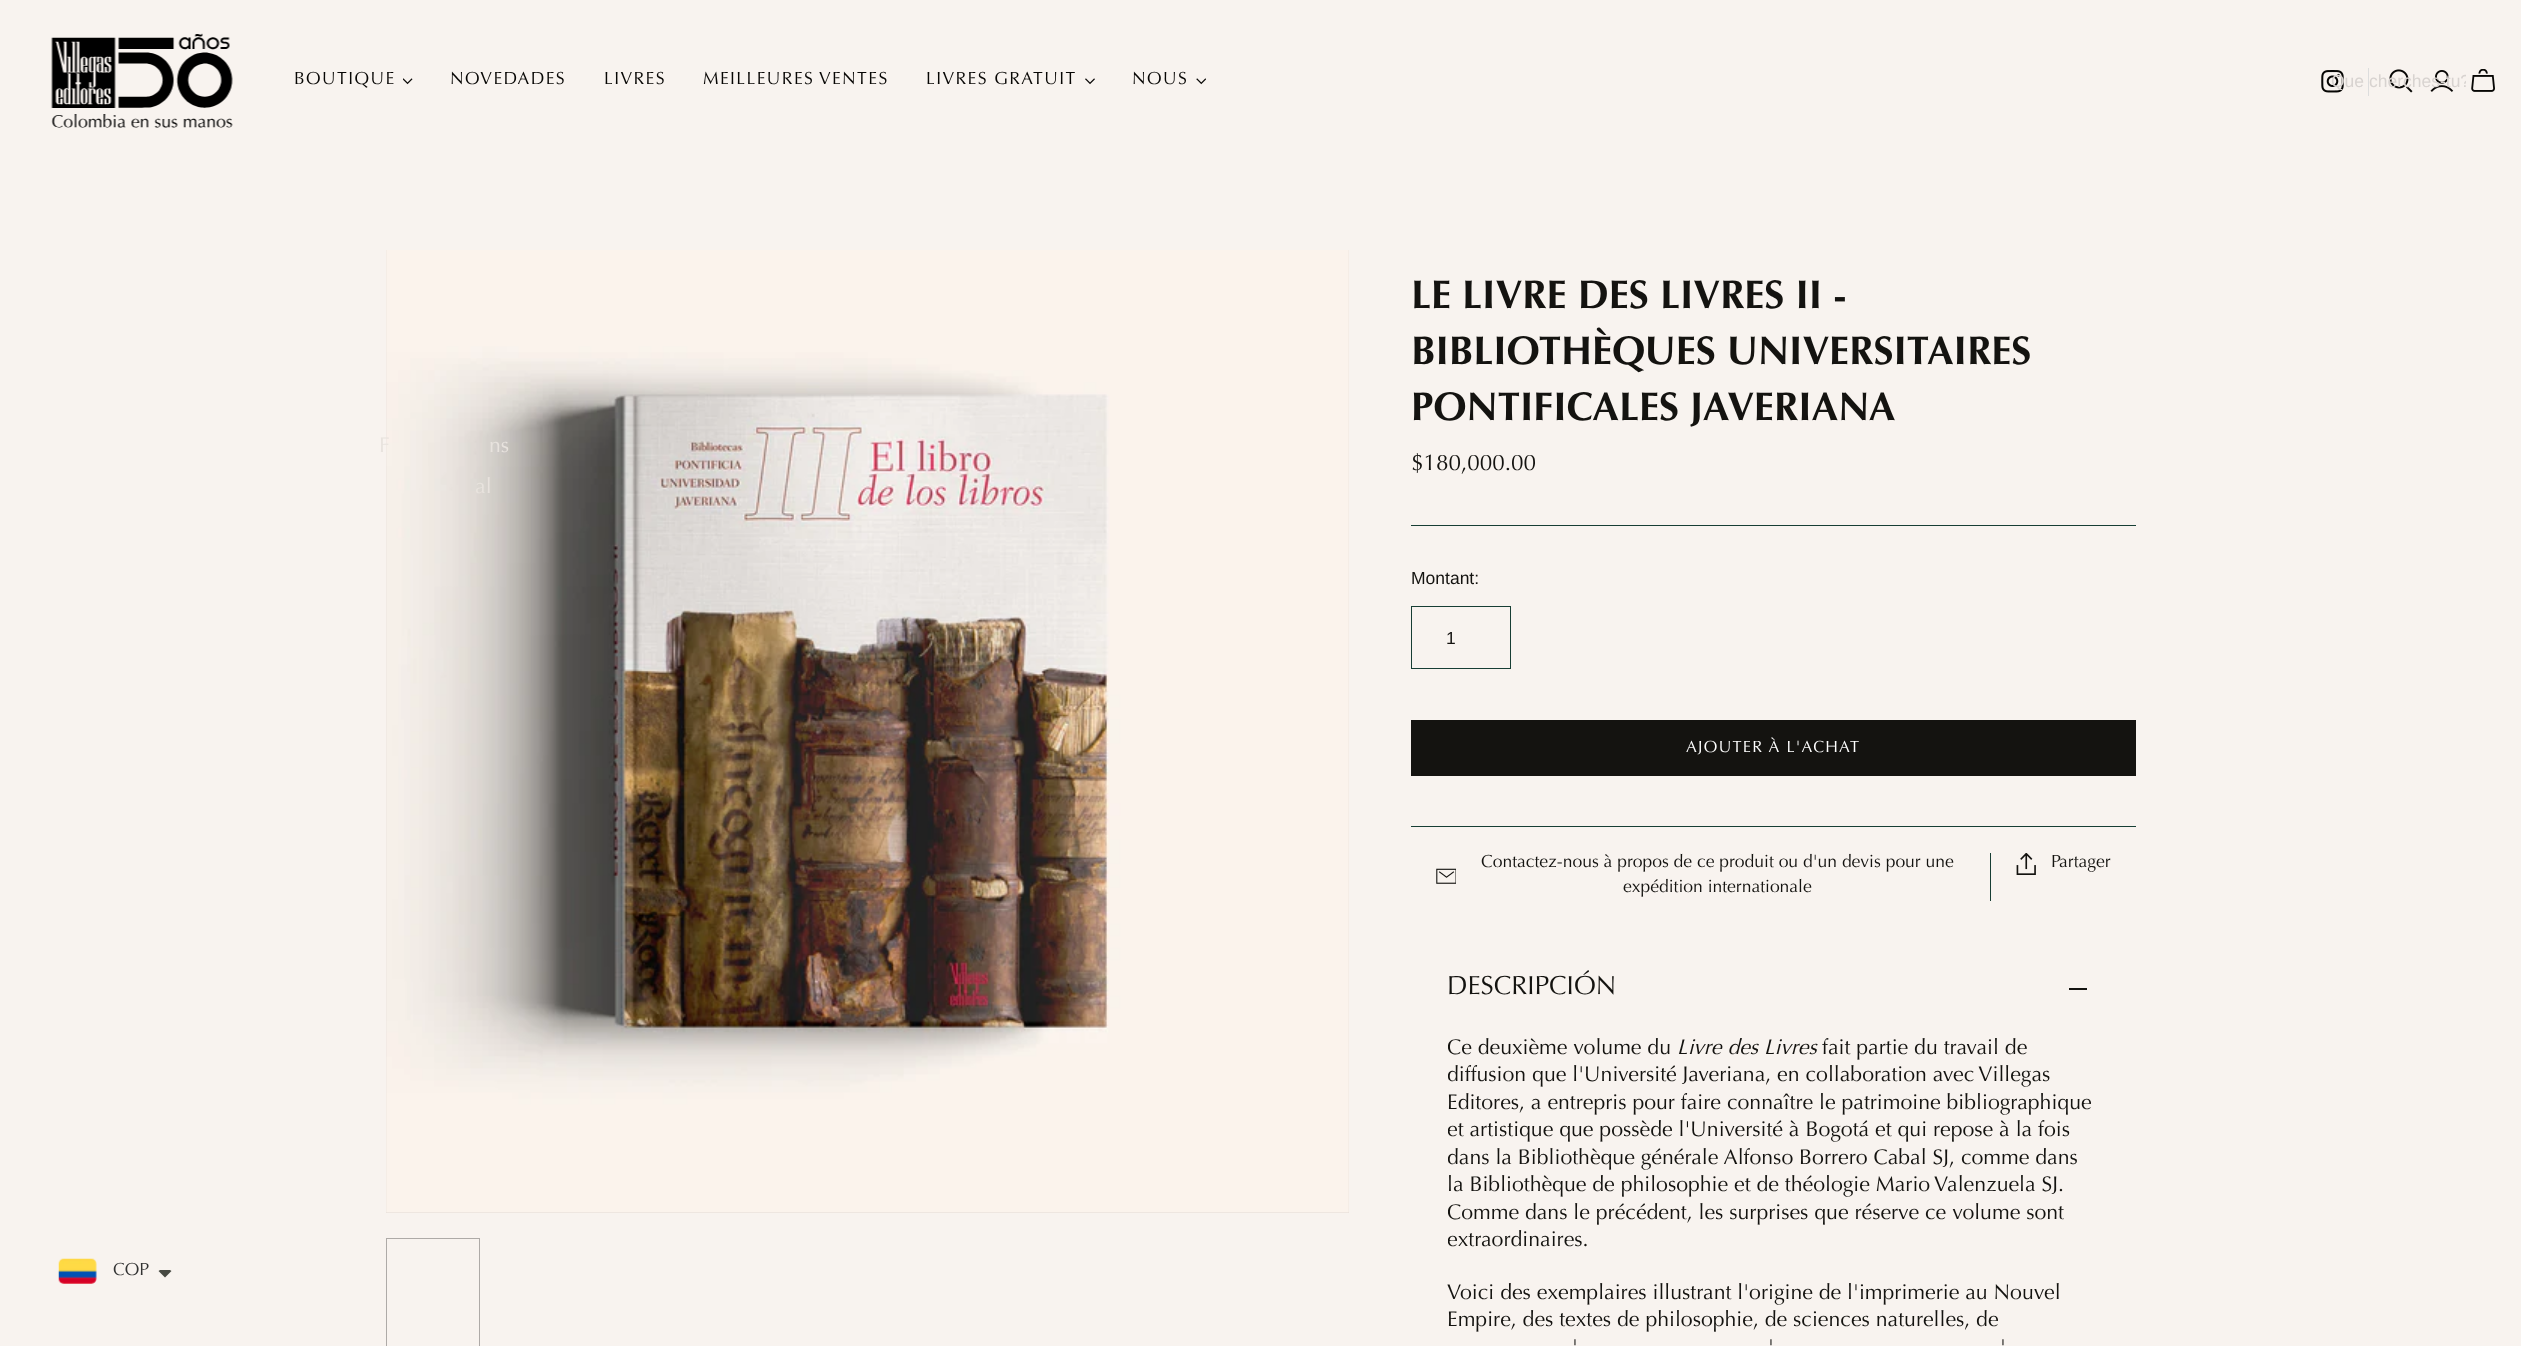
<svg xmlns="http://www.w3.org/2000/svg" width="2521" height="1346">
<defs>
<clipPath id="clip1"><rect x="2331" y="70" width="135" height="20"/></clipPath>
<clipPath id="clip2"><rect x="1448" y="1036" width="652" height="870"/></clipPath>
</defs>
<rect width="100%" height="100%" fill="#f8f3ef"/>
<image x="51" y="33" width="182" height="95" href="media/1.png"/>
<text x="294" y="84" style="font-family:Optima;font-size:17.5px;letter-spacing:1.4px;fill:#070604">BOUTIQUE</text>
<image x="403" y="78" width="10" height="7" href="media/2.png"/>
<text x="450" y="84" style="font-family:Optima;font-size:17.5px;letter-spacing:1.4px;fill:#070604">NOVEDADES</text>
<text x="604" y="84" style="font-family:Optima;font-size:17.5px;letter-spacing:1.4px;fill:#070604">LIVRES</text>
<text x="703" y="84" style="font-family:Optima;font-size:17.5px;letter-spacing:1.4px;fill:#070604">MEILLEURES VENTES</text>
<text x="926" y="84" style="font-family:Optima;font-size:17.5px;letter-spacing:1.4px;fill:#070604">LIVRES GRATUIT</text>
<image x="1085" y="78" width="10" height="7" href="media/3.png"/>
<text x="1132" y="84" style="font-family:Optima;font-size:17.5px;letter-spacing:1.4px;fill:#070604">NOUS</text>
<image x="1196" y="78" width="10" height="7" href="media/4.png"/>
<image x="2321" y="70" width="23" height="23" href="media/5.png"/>
<rect x="2368" y="68" width="1" height="28" fill="#ddd"/>
<image x="2430" y="70" width="24" height="22" href="media/6.png"/>
<image x="2471" y="69" width="24" height="23" href="media/7.png"/>
<image x="2389" y="69" width="24" height="24" href="media/8.png"/>
<g clip-path="url(#clip1)">
<text x="2331" y="87" style="font-family:Liberation Sans;font-size:17.5px;fill:#d8d3d0">Que cherches-tu?</text>
</g>
<rect x="386" y="250" width="963" height="963" fill="#e0d9d4"/>
<image x="386" y="250" width="963" height="963" href="media/10.png"/>
<text x="379" y="452" style="font-family:Optima;font-size:21.25px;fill:#e8e3de">F</text>
<text x="489" y="452" style="font-family:Optima;font-size:21.25px;fill:#e8e3de">ns</text>
<text x="475" y="493" style="font-family:Optima;font-size:21.25px;fill:#e8e3de">al</text>
<image x="58" y="1258" width="39" height="26" href="media/9.png"/>
<text x="113" y="1275" style="font-family:Optima;font-size:17.5px;fill:#333">COP</text>
<path d="M161 1270c-1 0-2 .5-2.5 1l6.5 6.5l6.5-6.5c-.5-.5-1.5-1-2.5-1z" fill="#474942"/>
<rect x="386.5" y="1238.5" width="93" height="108" fill="none" stroke="#aeaaa7"/>
<text x="1411" y="308" style="font-family:Optima;font-size:40px;font-weight:bold;fill:#141310">LE LIVRE DES LIVRES II -</text>
<text x="1411" y="364" style="font-family:Optima;font-size:40px;font-weight:bold;fill:#141310">BIBLIOTHÈQUES UNIVERSITAIRES</text>
<text x="1411" y="420" style="font-family:Optima;font-size:40px;font-weight:bold;fill:#141310">PONTIFICALES JAVERIANA</text>
<text x="1411" y="470" style="font-family:Optima;font-size:22.5px;fill:#141310">$180,000.00</text>
<rect x="1411" y="525" width="725" height="1" fill="#173e34"/>
<text x="1411" y="584" style="font-family:Liberation Sans;font-size:17.5px;fill:#141310">Montant:</text>
<rect x="1411.5" y="606.5" width="99" height="62" fill="none" stroke="#173e34"/>
<text x="1446" y="644" style="font-family:Liberation Sans;font-size:17.5px;fill:#141310">1</text>
<rect x="1411" y="720" width="725" height="56" fill="#141310"/>
<text x="1686" y="752" style="font-family:Optima;font-size:16.25px;letter-spacing:1.25px;fill:#fff">AJOUTER À L'ACHAT</text>
<rect x="1411" y="826" width="725" height="1" fill="#173e34"/>
<image x="1436" y="868" width="20" height="16" href="media/11.png"/>
<text x="1481" y="867" style="font-family:Optima;font-size:17.5px;fill:#141310">Contactez-nous à propos de ce produit ou d'un devis pour une</text>
<text x="1623" y="892" style="font-family:Optima;font-size:17.5px;fill:#141310">expédition internationale</text>
<rect x="1990" y="853" width="1" height="48" fill="#173e34"/>
<image x="2016" y="853" width="20" height="22" href="media/12.png"/>
<text x="2051" y="867" style="font-family:Optima;font-size:17.5px;fill:#141310">Partager</text>
<text x="1447" y="994" style="font-family:Optima;font-size:26.25px;fill:#141310">DESCRIPCIÓN</text>
<rect x="2069" y="988" width="18" height="2" fill="#141310"/>
<g clip-path="url(#clip2)">
<text x="1447" y="1054" style="font-family:Optima;font-size:21.25px;fill:#141310">Ce deuxième volume du</text>
</g>
<text x="1677" y="1054" style="font-family:Optima;font-size:21.25px;font-style:italic;fill:#141310">Livre des Livres</text>
<text x="1822" y="1054" style="font-family:Optima;font-size:21.25px;fill:#141310">fait partie du travail de</text>
<g clip-path="url(#clip2)">
<text x="1447" y="1081" style="font-family:Optima;font-size:21.25px;fill:#141310">diffusion que l'Université Javeriana, en collaboration avec Villegas</text>
</g>
<text x="1447" y="1109" style="font-family:Optima;font-size:21.25px;fill:#141310">Editores, a entrepris pour faire connaître le patrimoine bibliographique</text>
<g clip-path="url(#clip2)">
<text x="1447" y="1136" style="font-family:Optima;font-size:21.25px;fill:#141310">et artistique que possède l'Université à Bogotá et qui repose à la fois</text>
<text x="1447" y="1164" style="font-family:Optima;font-size:21.25px;fill:#141310">dans la Bibliothèque générale Alfonso Borrero Cabal SJ, comme dans</text>
</g>
<text x="1447" y="1191" style="font-family:Optima;font-size:21.25px;fill:#141310">la Bibliothèque de philosophie et de théologie Mario Valenzuela SJ.</text>
<g clip-path="url(#clip2)">
<text x="1447" y="1219" style="font-family:Optima;font-size:21.25px;fill:#141310">Comme dans le précédent, les surprises que réserve ce volume sont</text>
<text x="1447" y="1246" style="font-family:Optima;font-size:21.25px;fill:#141310">extraordinaires.</text>
</g>
<text x="1447" y="1299" style="font-family:Optima;font-size:21.25px;fill:#141310">Voici des exemplaires illustrant l'origine de l'imprimerie au Nouvel</text>
<text x="1447" y="1326" style="font-family:Optima;font-size:21.25px;fill:#141310">Empire, des textes de philosophie, de sciences naturelles, de</text>
<text x="1572" y="1354" style="font-family:Optima;font-size:21.25px;fill:#141310">'</text>
<text x="1768" y="1354" style="font-family:Optima;font-size:21.25px;fill:#141310">'</text>
<text x="2000" y="1354" style="font-family:Optima;font-size:21.25px;fill:#141310">'</text>
</svg>
